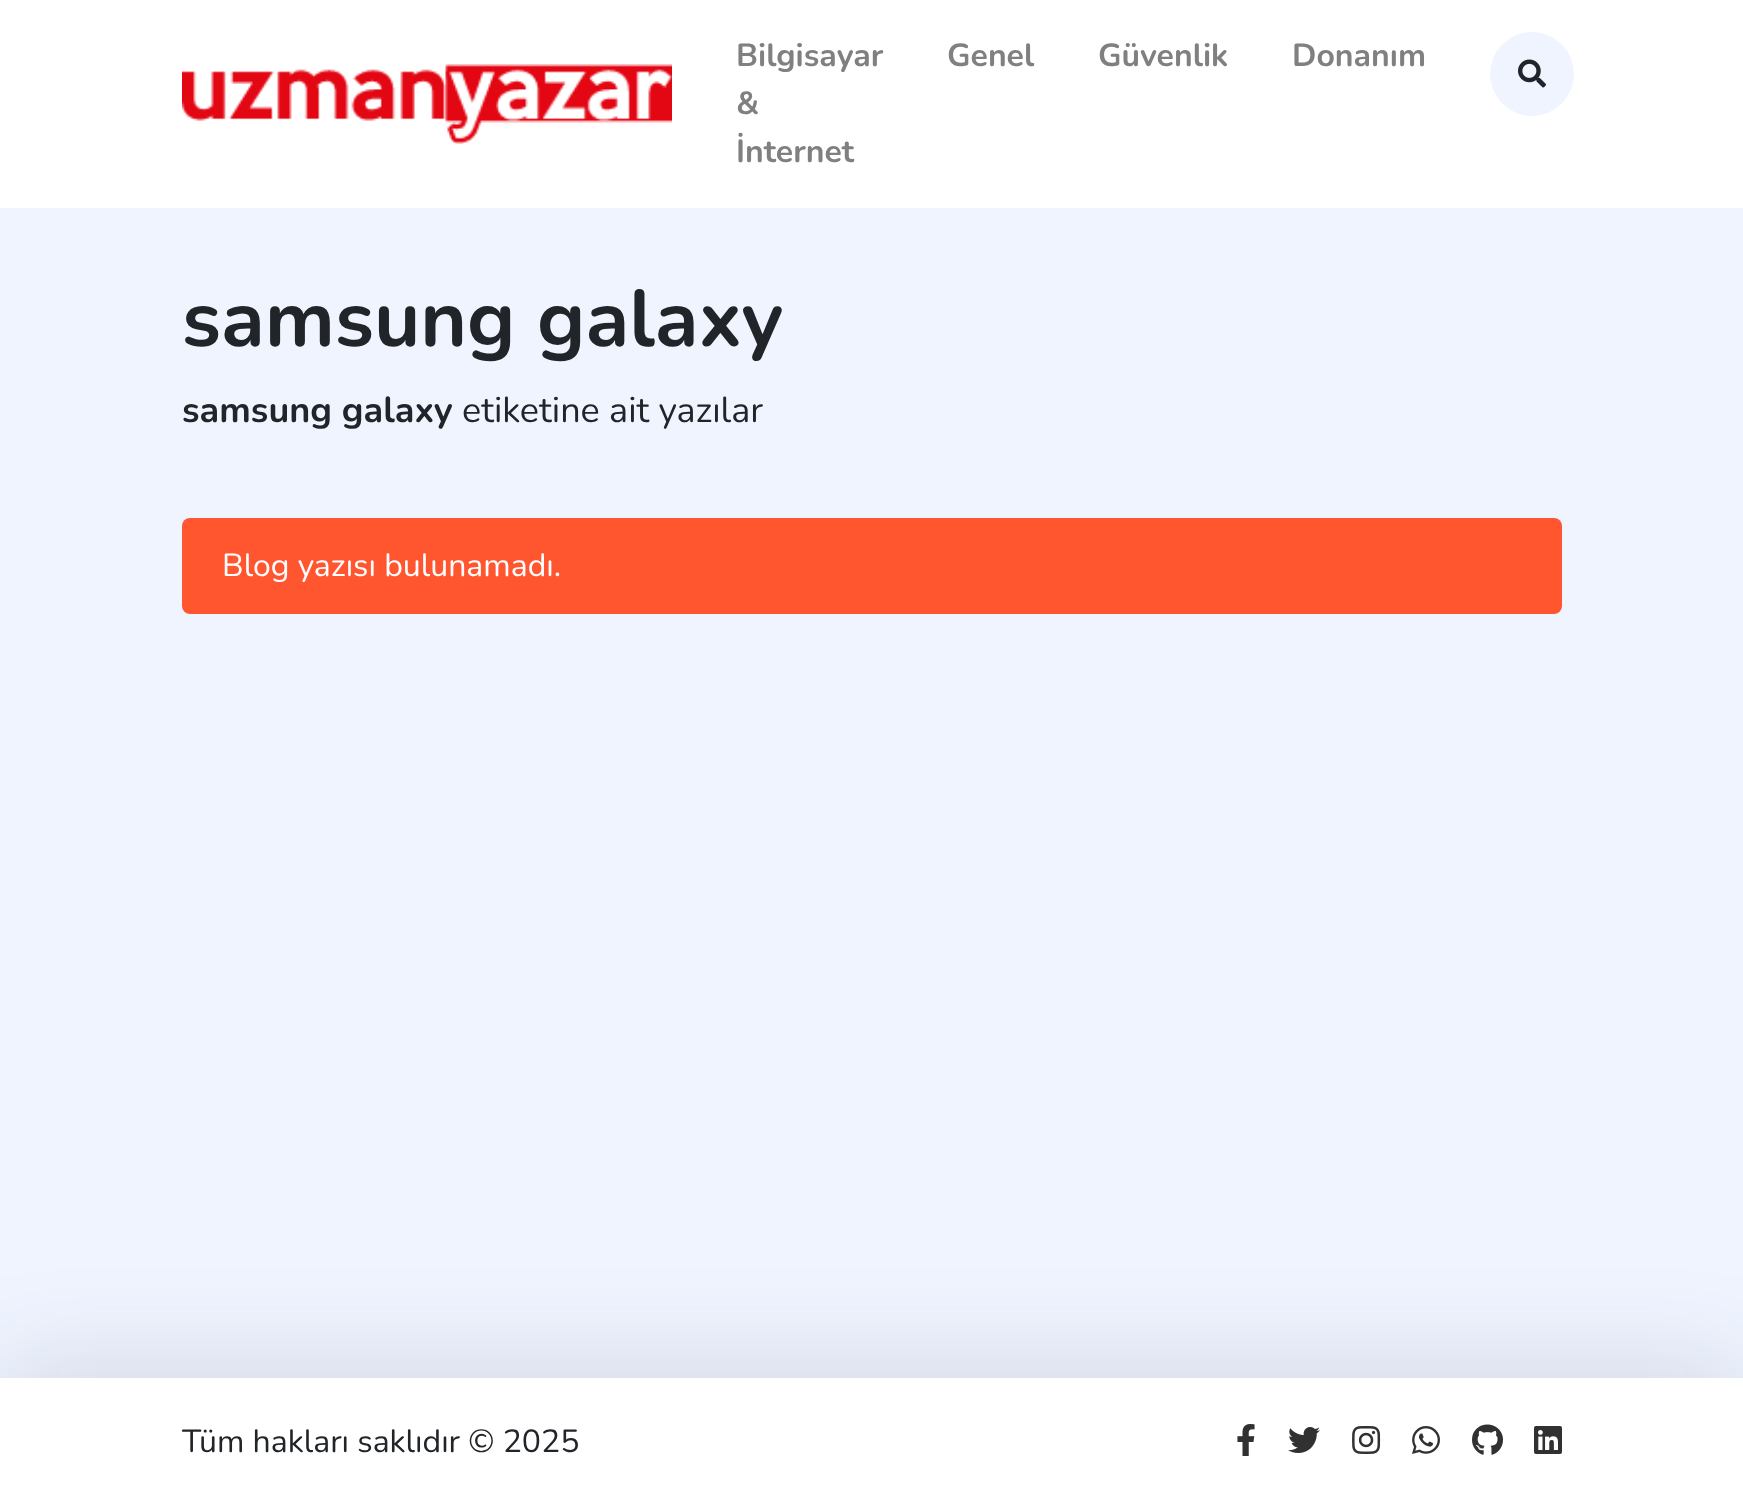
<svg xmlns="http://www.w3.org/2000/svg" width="1743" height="1505">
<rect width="100%" height="100%" fill="#eff4ff"/>
<rect width="1743" height="208" fill="#fff"/>
<image x="182" y="64" width="490" height="80" href="media/1.png"/>
<text x="736" y="66" style="font-family:Nunito;font-size:32px;font-weight:bold;fill:#808080">Bilgisayar</text>
<text x="736" y="114" style="font-family:Nunito;font-size:32px;font-weight:bold;fill:#808080">&amp;</text>
<text x="736" y="162" style="font-family:Nunito;font-size:32px;font-weight:bold;fill:#808080">İnternet</text>
<text x="947" y="66" style="font-family:Nunito;font-size:32px;font-weight:bold;fill:#808080">Genel</text>
<text x="1098" y="66" style="font-family:Nunito;font-size:32px;font-weight:bold;fill:#808080">Güvenlik</text>
<text x="1292" y="66" style="font-family:Nunito;font-size:32px;font-weight:bold;fill:#808080">Donanım</text>
<circle cx="1532" cy="74" r="42" fill="#eff4ff"/>
<image x="1518" y="59" width="28" height="29" href="media/2.png"/>
<text x="182" y="346" style="font-family:Nunito;font-size:80px;font-weight:bold;fill:#212529">samsung galaxy</text>
<text x="182" y="422" style="font-family:Nunito;font-size:36px;font-weight:bold;fill:#212529">samsung galaxy</text>
<text x="462" y="422" style="font-family:Nunito;font-size:36px;fill:#212529">etiketine ait yazılar</text>
<rect x="182" y="518" width="1380" height="96" rx="8" fill="#ff5630"/>
<text x="222" y="576" style="font-family:Nunito;font-size:32px;fill:#fff">Blog yazısı bulunamadı.</text>
<rect y="1362" width="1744" height="128" fill="#1f2d3d1f" filter="blur(48px)"/>
<rect y="1378" width="1743" height="127" fill="#fff"/>
<text x="182" y="1452" style="font-family:Nunito;font-size:32px;fill:#212529">Tüm hakları saklıdır © 2025</text>
<image x="1237" y="1424" width="18" height="32" href="media/3.png"/>
<image x="1288" y="1427" width="32" height="26" href="media/4.png"/>
<image x="1352" y="1426" width="29" height="28" href="media/5.png"/>
<image x="1412" y="1426" width="28" height="28" href="media/6.png"/>
<image x="1472" y="1424" width="31" height="31" href="media/7.png"/>
<image x="1534" y="1426" width="28" height="28" href="media/8.png"/>
</svg>
